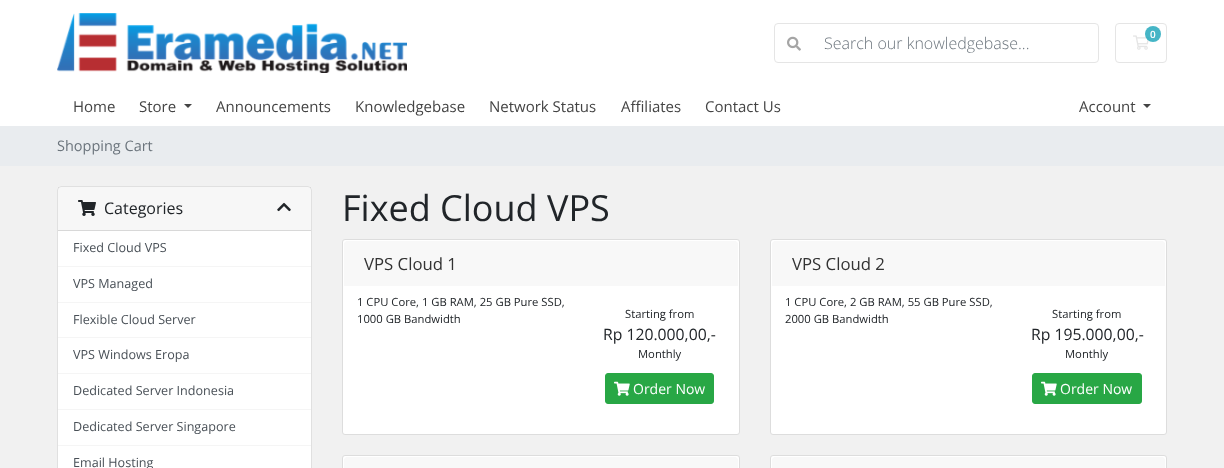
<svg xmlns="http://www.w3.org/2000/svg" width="1224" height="468">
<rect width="100%" height="100%" fill="#f1f1f1"/>
<rect width="1224" height="126" fill="#fff"/>
<image x="57" y="13" width="350" height="60" href="media/1.png"/>
<rect x="1115.5" y="23.5" width="51" height="39" rx="3.5" fill="none" stroke="#e5e5e5"/>
<image x="1133" y="35" width="16" height="15" href="media/2.png"/>
<circle cx="1153" cy="34" r="8" fill="#17a2b8cc"/>
<text x="1150" y="38" style="font-family:Open Sans;font-size:10px;font-weight:600;fill:#fff">0</text>
<rect x="774.5" y="23.5" width="324" height="39" rx="3.5" fill="none" stroke="#e5e5e5"/>
<image x="787" y="36" width="14" height="15" href="media/3.png"/>
<text x="824" y="49" style="font-family:Open Sans;font-size:16px;font-weight:300;fill:#6c757d">Search our knowledgebase...</text>
<text x="73" y="112" style="font-family:Open Sans;font-size:15px;fill:#444">Home</text>
<text x="139" y="112" style="font-family:Open Sans;font-size:15px;fill:#444">Store</text>
<path d="M184 104h8l-4 4z" fill="#444"/>
<text x="216" y="112" style="font-family:Open Sans;font-size:15px;fill:#444">Announcements</text>
<text x="355" y="112" style="font-family:Open Sans;font-size:15px;fill:#444">Knowledgebase</text>
<text x="489" y="112" style="font-family:Open Sans;font-size:15px;fill:#444">Network Status</text>
<text x="621" y="112" style="font-family:Open Sans;font-size:15px;fill:#444">Affiliates</text>
<text x="705" y="112" style="font-family:Open Sans;font-size:15px;fill:#444">Contact Us</text>
<text x="1079" y="112" style="font-family:Open Sans;font-size:15px;fill:#444">Account</text>
<path d="M1143 104h8l-4 4z" fill="#444"/>
<rect y="126" width="1224" height="40" fill="#e9ecef"/>
<text x="57" y="151" style="font-family:Open Sans;font-size:14.5px;fill:#6c757d">Shopping Cart</text>
<rect x="57" y="186" width="255" height="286" rx="4" fill="#fff"/>
<rect x="57.5" y="186.5" width="254" height="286" rx="3.5" fill="none" stroke="#0000001f"/>
<rect x="58" y="187" width="253" height="43" fill="#00000008"/>
<rect x="58" y="230" width="253" height="1" fill="#d8d8d8"/>
<image x="78" y="200" width="18" height="16" href="media/4.png"/>
<text x="104" y="214" style="font-family:Open Sans;font-size:16px;fill:#212529">Categories</text>
<image x="277" y="202" width="14" height="10" href="media/5.png"/>
<rect x="58" y="266" width="253" height="1" fill="#f5f5f5"/>
<text x="73" y="252" style="font-family:Open Sans;font-size:12.6px;fill:#495057">Fixed Cloud VPS</text>
<rect x="58" y="302" width="253" height="1" fill="#f5f5f5"/>
<text x="73" y="288" style="font-family:Open Sans;font-size:12.6px;fill:#495057">VPS Managed</text>
<rect x="58" y="337" width="253" height="1" fill="#f5f5f5"/>
<text x="73" y="324" style="font-family:Open Sans;font-size:12.6px;fill:#495057">Flexible Cloud Server</text>
<rect x="58" y="373" width="253" height="1" fill="#f5f5f5"/>
<text x="73" y="359" style="font-family:Open Sans;font-size:12.6px;fill:#495057">VPS Windows Eropa</text>
<rect x="58" y="409" width="253" height="1" fill="#f5f5f5"/>
<text x="73" y="395" style="font-family:Open Sans;font-size:12.6px;fill:#495057">Dedicated Server Indonesia</text>
<rect x="58" y="445" width="253" height="1" fill="#f5f5f5"/>
<text x="73" y="431" style="font-family:Open Sans;font-size:12.6px;fill:#495057">Dedicated Server Singapore</text>
<text x="73" y="467" style="font-family:Open Sans;font-size:12.6px;fill:#495057">Email Hosting</text>
<text x="342" y="221" style="font-family:Open Sans;font-size:36px;fill:#212529">Fixed Cloud VPS</text>
<rect x="342.5" y="239.5" width="397" height="195" rx="2.5" fill="#fff" stroke="#ddd"/>
<path d="M347 241h388c1.5 0 3 1.5 3 3v42h-394v-42c0-1.5 1.5-3 3-3z" fill="#f8f8f8"/>
<text x="364" y="270" style="font-family:Open Sans;font-size:16.75px;fill:#333">VPS Cloud 1</text>
<text x="357" y="306" style="font-family:Open Sans;font-size:11.25px;fill:#212529">1 CPU Core, 1 GB RAM, 25 GB Pure SSD,</text>
<text x="357" y="323" style="font-family:Open Sans;font-size:11.25px;fill:#212529">1000 GB Bandwidth</text>
<text x="625" y="318" style="font-family:Open Sans;font-size:11.25px;fill:#212529">Starting from</text>
<text x="603" y="340" style="font-family:Open Sans;font-size:15.75px;fill:#212529">Rp 120.000,00,-</text>
<text x="638" y="358" style="font-family:Open Sans;font-size:11.25px;fill:#212529">Monthly</text>
<rect x="605.5" y="373.5" width="108" height="30" rx="2.5" fill="#28a745" stroke="#28a745"/>
<image x="614" y="381" width="16" height="15" href="media/6.png"/>
<text x="633" y="394" style="font-family:Open Sans;font-size:14px;fill:#fff">Order Now</text>
<rect x="770.5" y="239.5" width="396" height="195" rx="2.5" fill="#fff" stroke="#ddd"/>
<path d="M775 241h387c1.5 0 3 1.5 3 3v42h-393v-42c0-1.5 1.5-3 3-3z" fill="#f8f8f8"/>
<text x="792" y="270" style="font-family:Open Sans;font-size:16.75px;fill:#333">VPS Cloud 2</text>
<text x="785" y="306" style="font-family:Open Sans;font-size:11.25px;fill:#212529">1 CPU Core, 2 GB RAM, 55 GB Pure SSD,</text>
<text x="785" y="323" style="font-family:Open Sans;font-size:11.25px;fill:#212529">2000 GB Bandwidth</text>
<text x="1052" y="318" style="font-family:Open Sans;font-size:11.25px;fill:#212529">Starting from</text>
<text x="1031" y="340" style="font-family:Open Sans;font-size:15.75px;fill:#212529">Rp 195.000,00,-</text>
<text x="1065" y="358" style="font-family:Open Sans;font-size:11.25px;fill:#212529">Monthly</text>
<rect x="1032.5" y="373.5" width="109" height="30" rx="2.5" fill="#28a745" stroke="#28a745"/>
<image x="1041" y="381" width="16" height="15" href="media/6.png"/>
<text x="1060" y="394" style="font-family:Open Sans;font-size:14px;fill:#fff">Order Now</text>
<rect x="342.5" y="455.5" width="397" height="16" rx="2.5" fill="#fff" stroke="#ddd"/>
<path d="M347 457h388c1.5 0 3 1.5 3 3v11h-394v-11c0-1.5 1.5-3 3-3z" fill="#f8f8f8"/>
<rect x="770.5" y="455.5" width="396" height="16" rx="2.5" fill="#fff" stroke="#ddd"/>
<path d="M775 457h387c1.5 0 3 1.5 3 3v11h-393v-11c0-1.5 1.5-3 3-3z" fill="#f8f8f8"/>
</svg>
